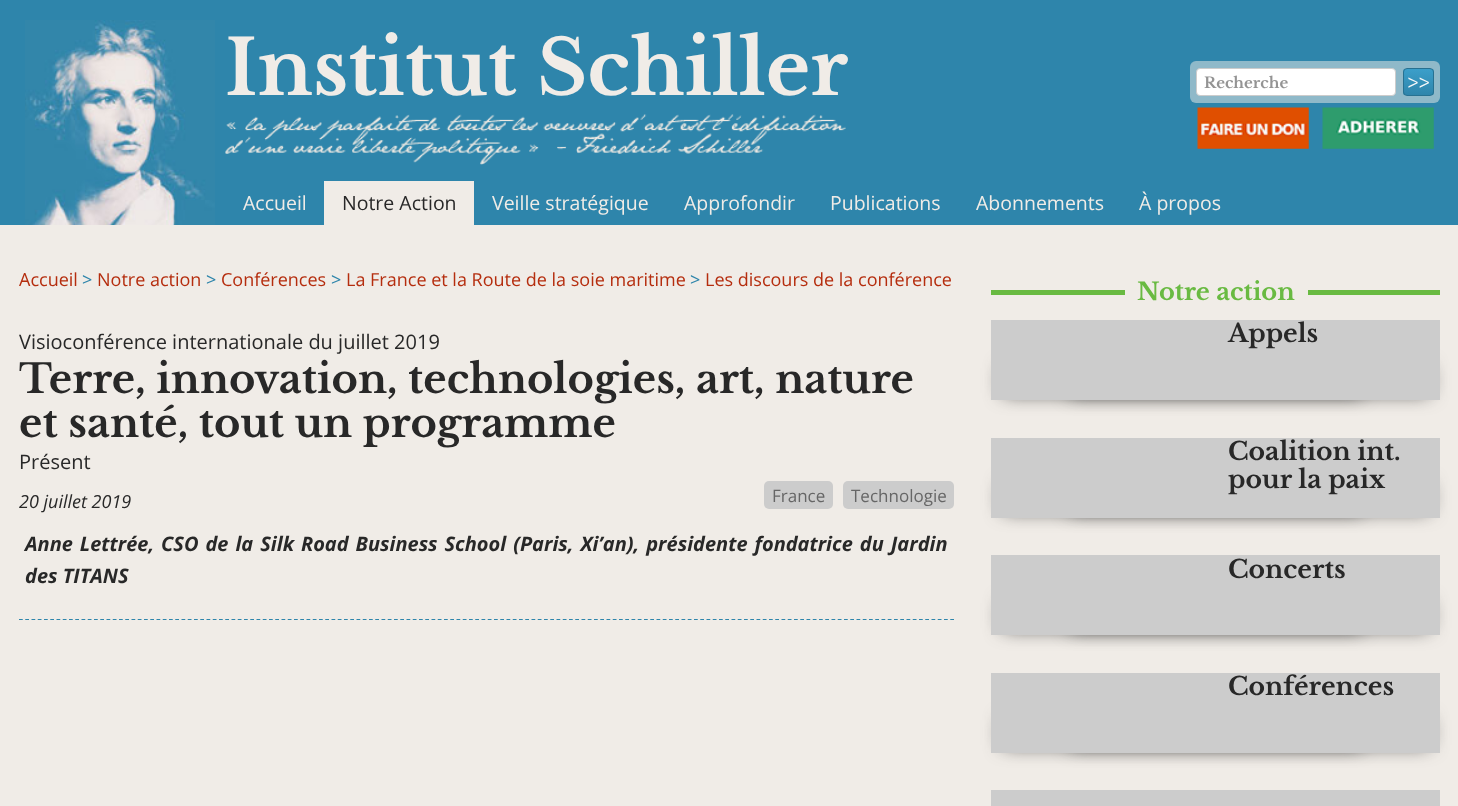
<svg xmlns="http://www.w3.org/2000/svg" width="1458" height="806">
<defs>
<clipPath id="clip1"><rect x="1403" y="68" width="31" height="28" rx="4"/></clipPath>
<linearGradient id="g1" gradientUnits="userSpaceOnUse" x1="1418" y1="69" x2="1418" y2="95"><stop offset="0" stop-color="#3b9fca"/><stop offset="1" stop-color="#2e85ab"/></linearGradient>
</defs>
<rect width="100%" height="100%" fill="#f0ece7"/>
<rect width="1458" height="225" fill="#2e85ab"/>
<image x="25" y="20" width="190" height="205" href="media/1.png"/>
<text x="225" y="95" style="font-family:Libre Baskerville;font-size:76px;font-weight:bold;fill:#f0ece7">Institut Schiller</text>
<rect x="1190" y="61" width="250" height="42" rx="6" fill="#8fb9c9"/>
<rect x="1196.5" y="68.5" width="199" height="27" rx="3.5" fill="#fff" stroke="#ccc"/>
<text x="1204" y="88" style="font-family:Libre Baskerville;font-size:15px;font-weight:bold;fill:#949494">Recherche</text>
<g clip-path="url(#clip1)">
<rect x="1403" y="69" width="31" height="26" fill="url(#g1)"/>
</g>
<rect x="1403.5" y="68.5" width="30" height="27" rx="3.5" fill="none" stroke="#277191"/>
<text x="1407" y="89" style="font-family:Libre Baskerville;font-size:19px;font-weight:bold;fill:#fafafa">&gt;&gt;</text>
<image x="225" y="114" width="621" height="51" href="media/2.png"/>
<image x="1197" y="107" width="112" height="42" href="media/3.png"/>
<image x="1322" y="107" width="112" height="42" href="media/4.png"/>
<text x="243" y="210" style="font-family:Open Sans;font-size:19.5px;fill:#f0ece7">Accueil</text>
<rect x="324" y="181" width="150" height="44" fill="#f0ece7"/>
<text x="342" y="210" style="font-family:Open Sans;font-size:19.5px;fill:#282828">Notre Action</text>
<text x="492" y="210" style="font-family:Open Sans;font-size:19.5px;fill:#f0ece7">Veille stratégique</text>
<text x="684" y="210" style="font-family:Open Sans;font-size:19.5px;fill:#f0ece7">Approfondir</text>
<text x="830" y="210" style="font-family:Open Sans;font-size:19.5px;fill:#f0ece7">Publications</text>
<text x="976" y="210" style="font-family:Open Sans;font-size:19.5px;fill:#f0ece7">Abonnements</text>
<text x="1139" y="210" style="font-family:Open Sans;font-size:19.5px;fill:#f0ece7">À propos</text>
<text x="19" y="286" style="font-family:Open Sans;font-size:18px;fill:#b52d0e">Accueil</text>
<text x="82" y="286" style="font-family:Open Sans;font-size:18px;fill:#2e85ab">&gt;</text>
<text x="97" y="286" style="font-family:Open Sans;font-size:18px;fill:#b52d0e">Notre action</text>
<text x="206" y="286" style="font-family:Open Sans;font-size:18px;fill:#2e85ab">&gt;</text>
<text x="221" y="286" style="font-family:Open Sans;font-size:18px;fill:#b52d0e">Conférences</text>
<text x="331" y="286" style="font-family:Open Sans;font-size:18px;fill:#2e85ab">&gt;</text>
<text x="346" y="286" style="font-family:Open Sans;font-size:18px;fill:#b52d0e">La France et la Route de la soie maritime</text>
<text x="690" y="286" style="font-family:Open Sans;font-size:18px;fill:#2e85ab">&gt;</text>
<text x="705" y="286" style="font-family:Open Sans;font-size:18px;fill:#b52d0e">Les discours de la conférence</text>
<text x="19" y="349" style="font-family:Open Sans;font-size:20px;fill:#282828">Visioconférence internationale du juillet 2019</text>
<text x="19" y="393" style="font-family:Libre Baskerville;font-size:40px;font-weight:bold;fill:#282828">Terre, innovation, technologies, art, nature</text>
<text x="19" y="437" style="font-family:Libre Baskerville;font-size:40px;font-weight:bold;fill:#282828">et santé, tout un programme</text>
<text x="19" y="469" style="font-family:Open Sans;font-size:20px;fill:#282828">Présent</text>
<text x="19" y="508" style="font-family:Open Sans;font-size:18px;font-style:italic;fill:#282828">20 juillet 2019</text>
<rect x="764" y="481" width="69" height="28" rx="5" fill="#ccc"/>
<text x="772" y="502" style="font-family:Open Sans;font-size:17px;fill:#666">France</text>
<rect x="843" y="481" width="111" height="28" rx="5" fill="#ccc"/>
<text x="851" y="502" style="font-family:Open Sans;font-size:17px;fill:#666">Technologie</text>
<path d="M19 619.5h935" fill="none" stroke="#2e85ab" stroke-width="1.2" stroke-dasharray="3.75 2.5"/>
<text x="25" y="551" word-spacing="1.75" style="font-family:Open Sans;font-size:20px;font-weight:bold;font-style:italic;fill:#282828">Anne Lettrée, CSO de la Silk Road Business School (Paris, Xi’an), présidente fondatrice du Jardin</text>
<text x="25" y="583" style="font-family:Open Sans;font-size:20px;font-weight:bold;font-style:italic;fill:#282828">des TITANS</text>
<rect x="991" y="290" width="449" height="5" fill="#69ba42"/>
<rect x="1125" y="290" width="183" height="5" fill="#f0ece7"/>
<text x="1137" y="300" style="font-family:Libre Baskerville;font-size:24px;font-weight:bold;fill:#69ba42">Notre action</text>
<rect x="1003" y="368" width="358" height="25" fill="#333" filter="blur(9.5px)"/>
<rect x="1070" y="368" width="359" height="25" fill="#333" filter="blur(9.5px)"/>
<rect x="991" y="320" width="449" height="80" fill="#ccc"/>
<text x="1228" y="342" style="font-family:Libre Baskerville;font-size:25px;font-weight:bold;fill:#282828">Appels</text>
<rect x="1003" y="485" width="358" height="25" fill="#333" filter="blur(9.5px)"/>
<rect x="1070" y="485" width="359" height="25" fill="#333" filter="blur(9.5px)"/>
<rect x="991" y="438" width="449" height="80" fill="#ccc"/>
<text x="1228" y="460" style="font-family:Libre Baskerville;font-size:25px;font-weight:bold;fill:#282828">Coalition int.</text>
<text x="1228" y="488" style="font-family:Libre Baskerville;font-size:25px;font-weight:bold;fill:#282828">pour la paix</text>
<rect x="1003" y="603" width="358" height="25" fill="#333" filter="blur(9.5px)"/>
<rect x="1070" y="603" width="359" height="25" fill="#333" filter="blur(9.5px)"/>
<rect x="991" y="555" width="449" height="80" fill="#ccc"/>
<text x="1228" y="578" style="font-family:Libre Baskerville;font-size:25px;font-weight:bold;fill:#282828">Concerts</text>
<rect x="1003" y="720" width="358" height="25" fill="#333" filter="blur(9.5px)"/>
<rect x="1070" y="720" width="359" height="25" fill="#333" filter="blur(9.5px)"/>
<rect x="991" y="673" width="449" height="80" fill="#ccc"/>
<text x="1228" y="695" style="font-family:Libre Baskerville;font-size:25px;font-weight:bold;fill:#282828">Conférences</text>
<rect x="991" y="790" width="449" height="16" fill="#ccc"/>
</svg>
